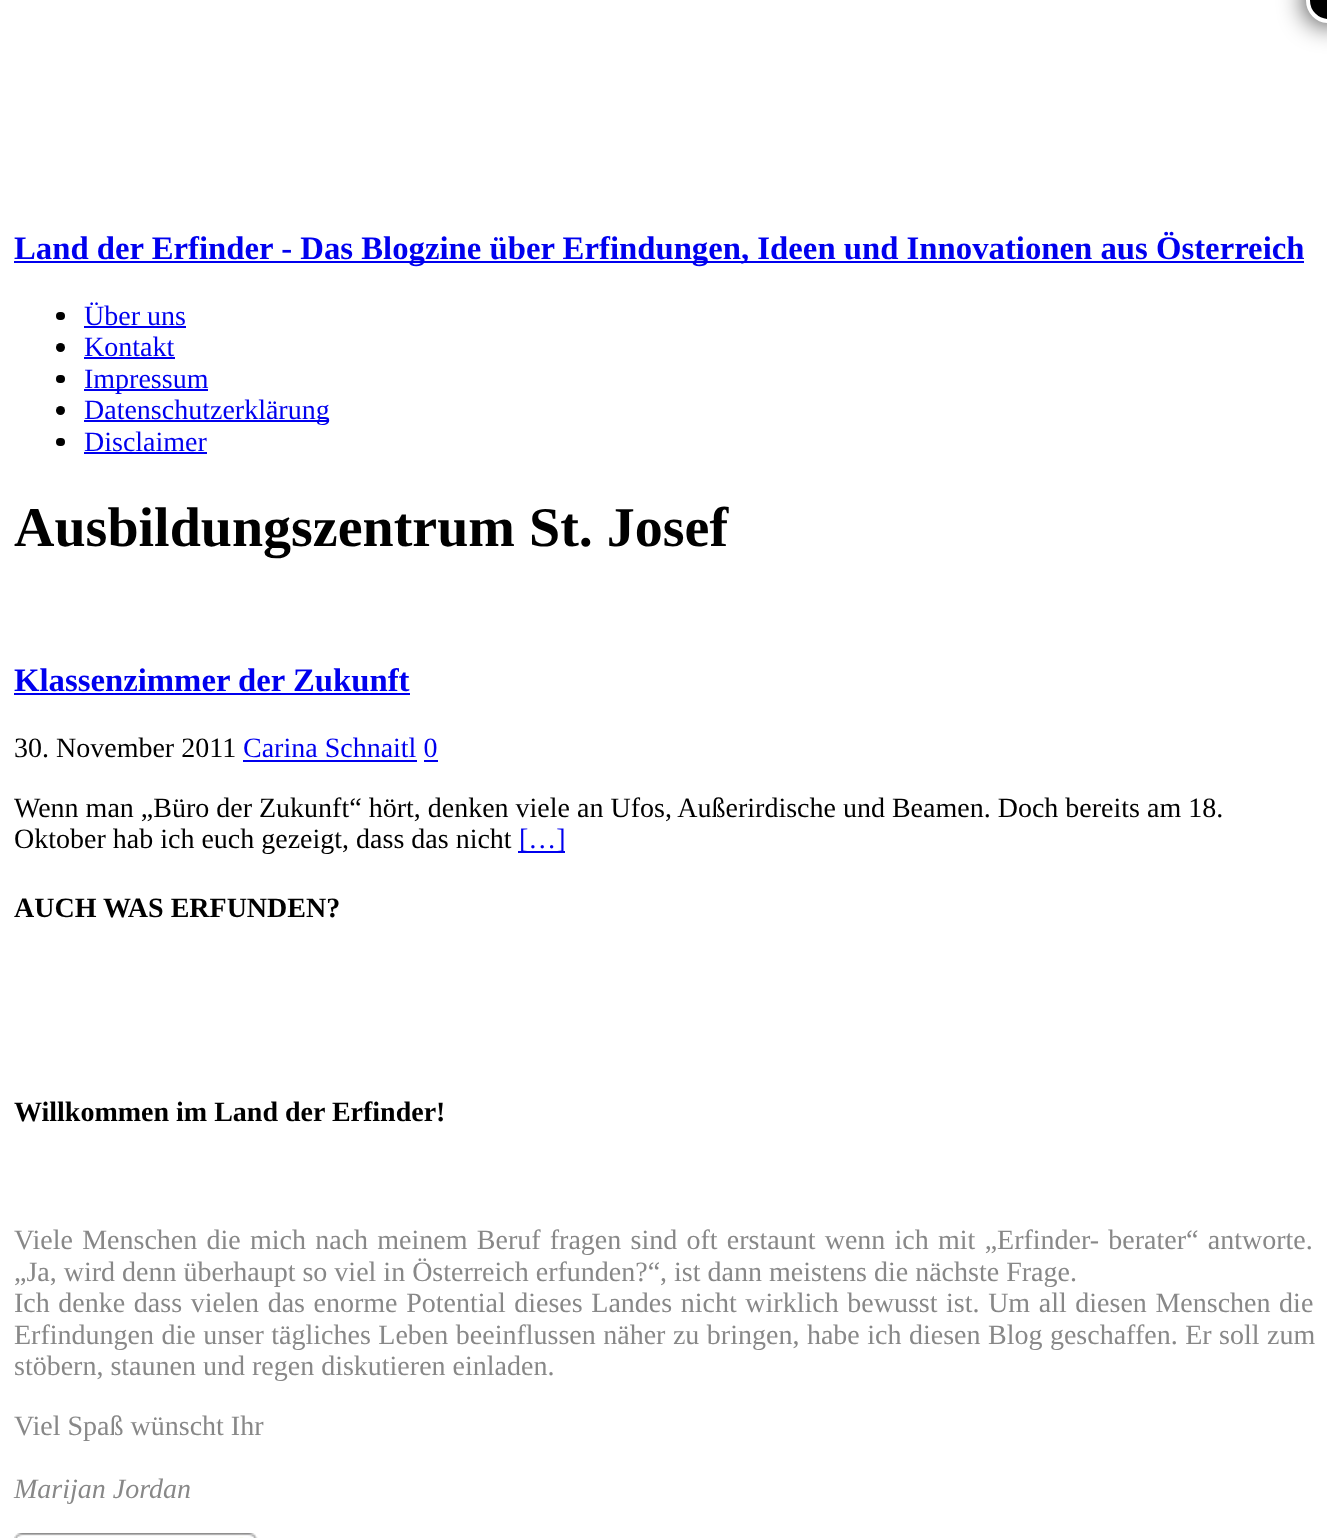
<svg xmlns="http://www.w3.org/2000/svg" width="1327" height="1538">
<rect width="100%" height="100%" fill="#fff"/>
<rect x="1304" y="-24" width="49" height="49" rx="24.5" fill="#020202bf" filter="blur(13px)"/>
<rect x="1308" y="-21" width="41" height="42" rx="20.5" fill="#000" stroke="#fff" stroke-width="4"/>
<rect x="14" y="261" width="1290" height="2" fill="#00e"/>
<text x="14" y="259" style="font-family:Liberation Serif;font-size:32.75px;font-weight:bold;fill:#00e">Land der Erfinder - Das Blogzine über Erfindungen, Ideen und Innovationen aus Österreich</text>
<rect x="56" y="312" width="9" height="8" rx="4" fill="#000"/>
<text x="84" y="325" style="font-family:Liberation Serif;font-size:28px;fill:#00e">Über uns</text>
<rect x="84" y="326" width="102" height="2" fill="#00e"/>
<circle cx="60.5" cy="347.5" r="4.5" fill="#000"/>
<text x="84" y="356" style="font-family:Liberation Serif;font-size:28px;fill:#00e">Kontakt</text>
<rect x="84" y="357" width="91" height="2" fill="#00e"/>
<rect x="56" y="375" width="9" height="8" rx="4" fill="#000"/>
<rect x="84" y="389" width="124" height="2" fill="#00e"/>
<text x="84" y="388" style="font-family:Liberation Serif;font-size:28px;fill:#00e">Impressum</text>
<circle cx="60.5" cy="410.5" r="4.5" fill="#000"/>
<rect x="84" y="420" width="245" height="2" fill="#00e"/>
<text x="84" y="419" style="font-family:Liberation Serif;font-size:28px;fill:#00e">Datenschutzerklärung</text>
<rect x="56" y="438" width="9" height="8" rx="4" fill="#000"/>
<text x="84" y="451" style="font-family:Liberation Serif;font-size:28px;fill:#00e">Disclaimer</text>
<rect x="84" y="452" width="123" height="2" fill="#00e"/>
<text x="14" y="546" style="font-family:Liberation Serif;font-size:56px;font-weight:bold;fill:#000">Ausbildungszentrum St. Josef</text>
<text x="14" y="691" style="font-family:Liberation Serif;font-size:32.75px;font-weight:bold;fill:#00e">Klassenzimmer der Zukunft</text>
<rect x="14" y="693" width="396" height="2" fill="#00e"/>
<text x="14" y="757" style="font-family:Liberation Serif;font-size:28px;fill:#000">30. November 2011</text>
<text x="243" y="757" style="font-family:Liberation Serif;font-size:28px;fill:#00e">Carina Schnaitl 0</text>
<rect x="243" y="760" width="174" height="2" fill="#00e"/>
<rect x="424" y="760" width="14" height="2" fill="#00e"/>
<text x="14" y="817" style="font-family:Liberation Serif;font-size:28px;fill:#000">Wenn man „Büro der Zukunft“ hört, denken viele an Ufos, Außerirdische und Beamen. Doch bereits am 18.</text>
<text x="14" y="848" style="font-family:Liberation Serif;font-size:28px;fill:#000">Oktober hab ich euch gezeigt, dass das nicht</text>
<rect x="518" y="851" width="47" height="2" fill="#00e"/>
<text x="519" y="848" style="font-family:Liberation Serif;font-size:28px;fill:#00e">[…]</text>
<text x="14" y="917" style="font-family:Liberation Serif;font-size:28px;font-weight:bold;fill:#000">AUCH WAS ERFUNDEN?</text>
<text x="14" y="1121" style="font-family:Liberation Serif;font-size:28px;font-weight:bold;fill:#000">Willkommen im Land der Erfinder!</text>
<text x="14" y="1249" word-spacing="2.25" style="font-family:Liberation Serif;font-size:28px;fill:#888">Viele Menschen die mich nach meinem Beruf fragen sind oft erstaunt wenn ich mit „Erfinder- berater“ antworte.</text>
<text x="14" y="1281" style="font-family:Liberation Serif;font-size:28px;fill:#888">„Ja, wird denn überhaupt so viel in Österreich erfunden?“, ist dann meistens die nächste Frage.</text>
<text x="14" y="1312" word-spacing="1.6" style="font-family:Liberation Serif;font-size:28px;fill:#888">Ich denke dass vielen das enorme Potential dieses Landes nicht wirklich bewusst ist. Um all diesen Menschen die</text>
<text x="14" y="1344" word-spacing="0.5" style="font-family:Liberation Serif;font-size:28px;fill:#888">Erfindungen die unser tägliches Leben beeinflussen näher zu bringen, habe ich diesen Blog geschaffen. Er soll zum</text>
<text x="14" y="1375" style="font-family:Liberation Serif;font-size:28px;fill:#888">stöbern, staunen und regen diskutieren einladen.</text>
<text x="14" y="1435" style="font-family:Liberation Serif;font-size:28px;fill:#888">Viel Spaß wünscht Ihr</text>
<text x="14" y="1498" style="font-family:Liberation Serif;font-size:28px;font-style:italic;fill:#888">Marijan Jordan</text>
<image x="14" y="1533" width="244" height="5" href="media/1.png"/>
</svg>
